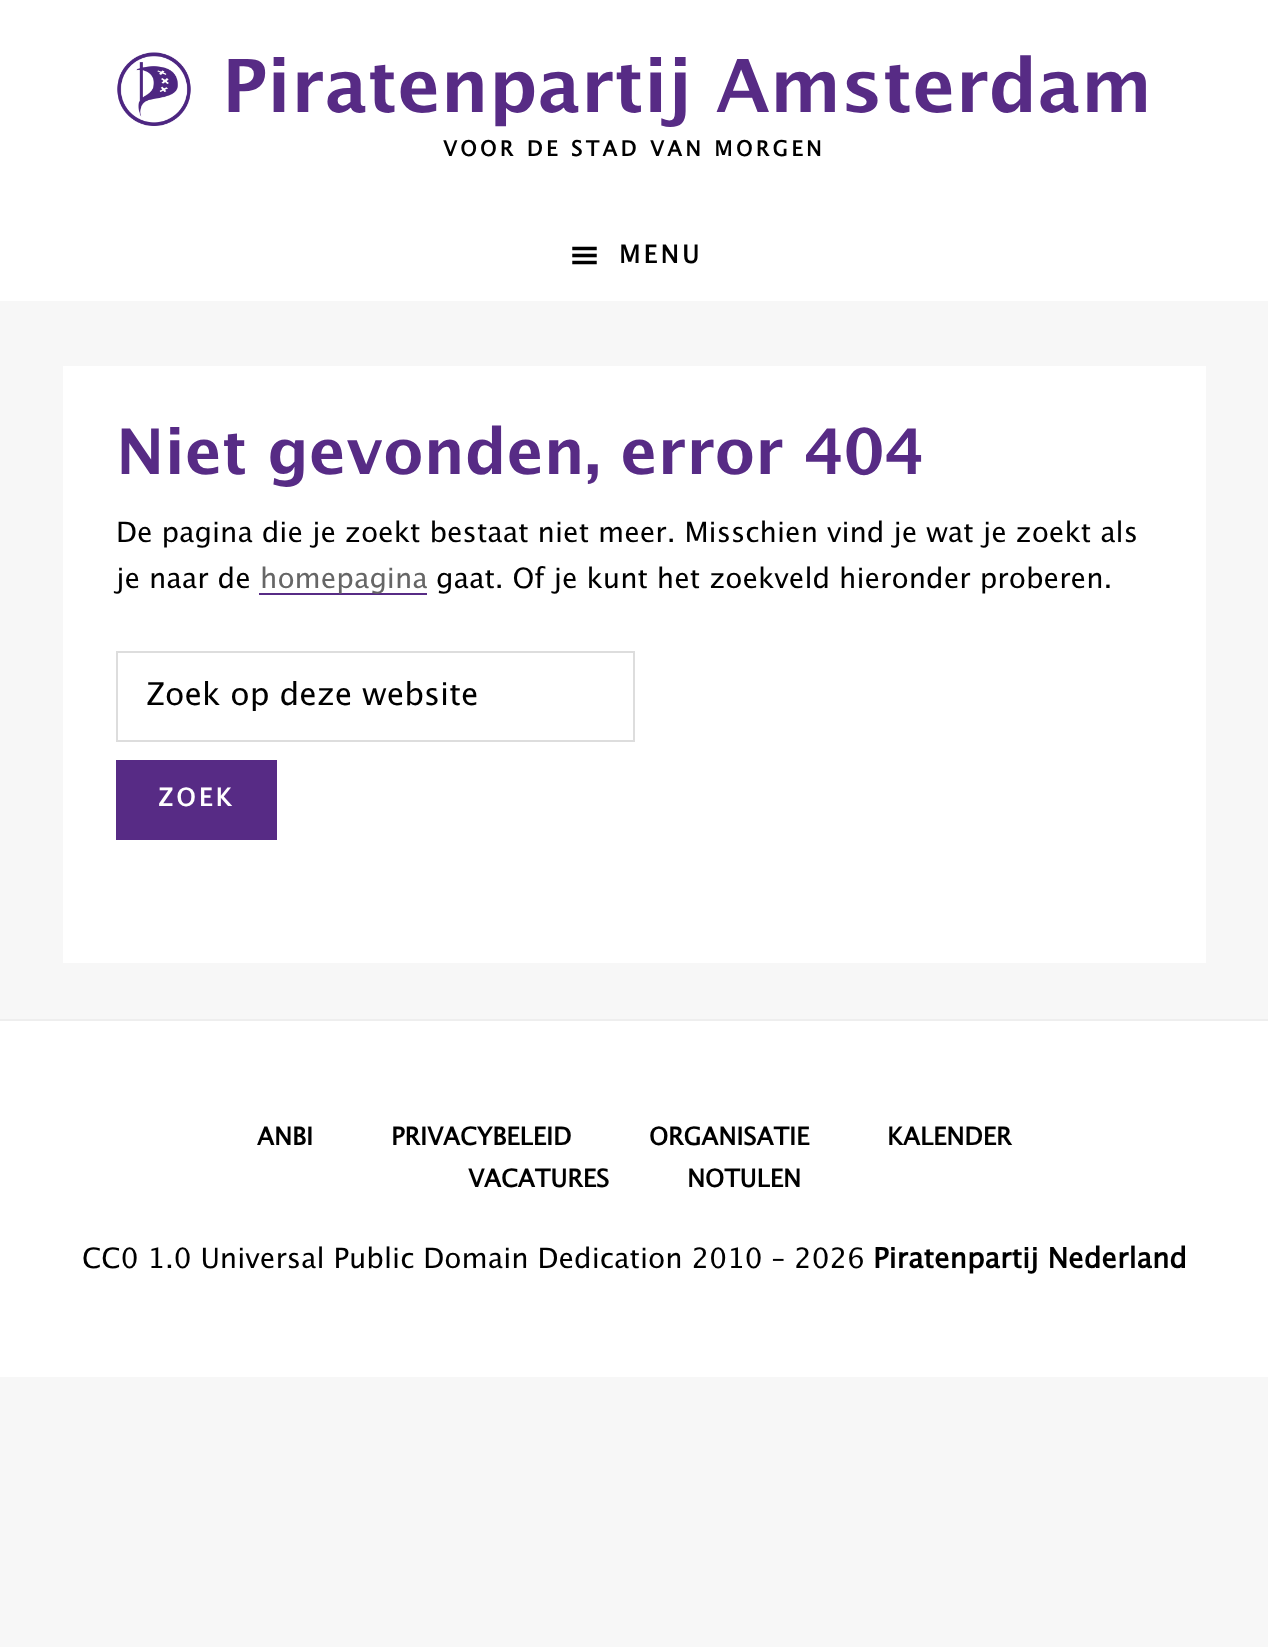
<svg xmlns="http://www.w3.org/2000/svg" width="1268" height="1647">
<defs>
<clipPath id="clip1"><rect x="145" y="681" width="461" height="31"/></clipPath>
</defs>
<rect width="100%" height="100%" fill="#f7f7f7"/>
<rect width="1268" height="301" fill="#fff"/>
<image x="117" y="52" width="74" height="74" href="media/1.png"/>
<text x="222" y="112" style="font-family:Lucida Grande;font-size:73.5px;font-weight:bold;fill:#572b85">Piratenpartij Amsterdam</text>
<text x="443" y="156" style="font-family:'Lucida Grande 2';font-size:21px;font-weight:bold;letter-spacing:3.5px;fill:#000">VOOR DE STAD VAN MORGEN</text>
<image x="572" y="246" width="25" height="19" href="media/2.png"/>
<text x="619" y="263" style="font-family:'Lucida Grande 2';font-size:24.5px;font-weight:bold;letter-spacing:3.5px;fill:#000">MENU</text>
<rect x="63" y="366" width="1143" height="597" fill="#fff"/>
<text x="116" y="474" style="font-family:Lucida Grande;font-size:63px;font-weight:bold;fill:#572b85">Niet gevonden, error 404</text>
<text x="116" y="542" style="font-family:Lucida Grande;font-size:28px;fill:#000">De pagina die je zoekt bestaat niet meer. Misschien vind je wat je zoekt als</text>
<text x="116" y="588" style="font-family:Lucida Grande;font-size:28px;fill:#000">je naar de</text>
<rect x="259" y="593" width="168" height="2" fill="#572b85"/>
<text x="260" y="588" style="font-family:Lucida Grande;font-size:28px;fill:#666">homepagina</text>
<text x="436" y="588" style="font-family:Lucida Grande;font-size:28px;fill:#000">gaat. Of je kunt het zoekveld hieronder proberen.</text>
<rect x="117" y="652" width="517" height="89" fill="none" stroke="#ddd" stroke-width="2"/>
<g clip-path="url(#clip1)">
<text x="146" y="705" style="font-family:Lucida Grande;font-size:31.5px;fill:#000">Zoek op deze website</text>
</g>
<rect x="116" y="760" width="161" height="80" fill="#572b85"/>
<text x="158" y="806" style="font-family:'Lucida Grande 2';font-size:24.5px;font-weight:bold;letter-spacing:3.5px;fill:#fff">ZOEK</text>
<rect y="1021" width="1268" height="356" fill="#fff"/>
<rect y="1019" width="1268" height="2" fill="#eee"/>
<text x="257" y="1145" style="font-family:'Lucida Grande 2';font-size:24.5px;font-weight:bold;fill:#000">ANBI</text>
<text x="391" y="1145" style="font-family:'Lucida Grande 2';font-size:24.5px;font-weight:bold;fill:#000">PRIVACYBELEID</text>
<text x="649" y="1145" style="font-family:'Lucida Grande 2';font-size:24.5px;font-weight:bold;fill:#000">ORGANISATIE</text>
<text x="887" y="1145" style="font-family:'Lucida Grande 2';font-size:24.5px;font-weight:bold;fill:#000">KALENDER</text>
<text x="468" y="1187" style="font-family:'Lucida Grande 2';font-size:24.5px;font-weight:bold;fill:#000">VACATURES</text>
<text x="687" y="1187" style="font-family:'Lucida Grande 2';font-size:24.5px;font-weight:bold;fill:#000">NOTULEN</text>
<text x="82" y="1268" style="font-family:Lucida Grande;font-size:28px;fill:#000">CC0 1.0 Universal Public Domain Dedication 2010 – 2026</text>
<text x="873" y="1268" style="font-family:'Lucida Grande 2';font-size:28px;font-weight:bold;fill:#000">Piratenpartij Nederland</text>
</svg>
